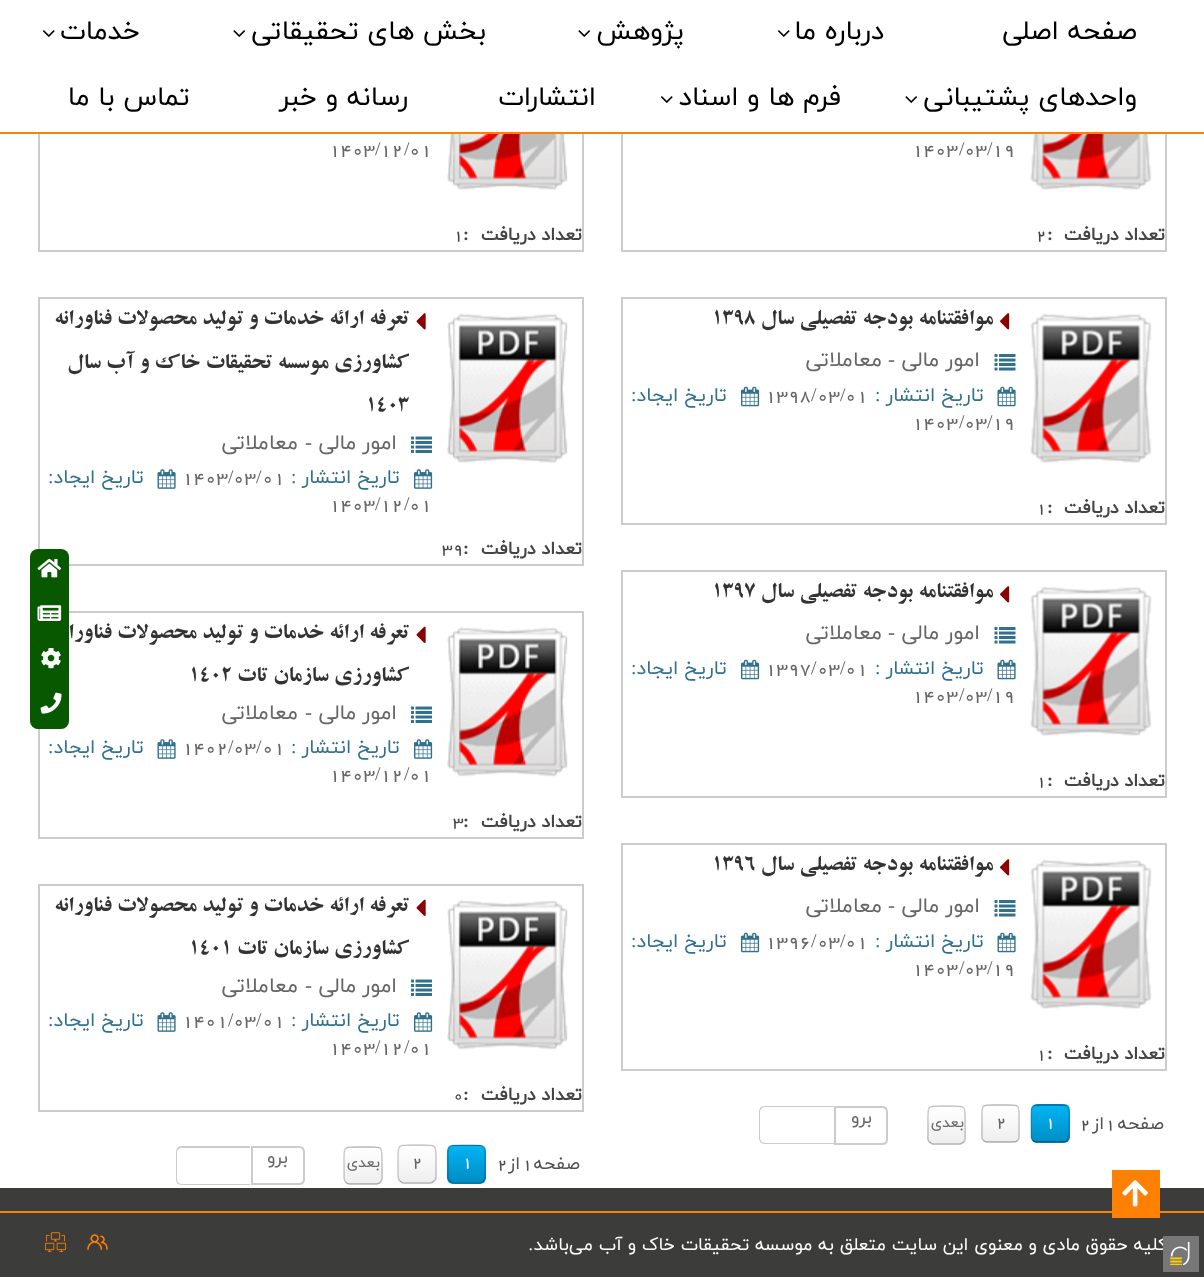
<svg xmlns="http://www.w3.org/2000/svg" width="1204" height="1277">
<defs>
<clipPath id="clip1"><rect x="1031" y="1104" width="39" height="39" rx="6"/></clipPath>
<linearGradient id="g1" gradientUnits="userSpaceOnUse" x1="1050" y1="1070" x2="1050" y2="1106"><stop offset="0" stop-color="#00b4f5"/><stop offset="1" stop-color="#008dc5"/></linearGradient>
<linearGradient id="g2" gradientUnits="userSpaceOnUse" x1="1050" y1="1106" x2="1050" y2="1142"><stop offset="0" stop-color="#00b4f5"/><stop offset="1" stop-color="#008dc5"/></linearGradient>
<linearGradient id="g3" gradientUnits="userSpaceOnUse" x1="1050" y1="1142" x2="1050" y2="1178"><stop offset="0" stop-color="#00b4f5"/><stop offset="1" stop-color="#008dc5"/></linearGradient>
<clipPath id="clip2"><rect x="981" y="1104" width="39" height="39" rx="6"/></clipPath>
<linearGradient id="g4" gradientUnits="userSpaceOnUse" x1="1001" y1="1070" x2="1001" y2="1106"><stop offset="0" stop-color="#fff"/><stop offset="1" stop-color="#eee"/></linearGradient>
<linearGradient id="g5" gradientUnits="userSpaceOnUse" x1="1001" y1="1106" x2="1001" y2="1142"><stop offset="0" stop-color="#fff"/><stop offset="1" stop-color="#eee"/></linearGradient>
<clipPath id="clip3"><rect x="927" y="1106" width="39" height="39" rx="6"/></clipPath>
<linearGradient id="g6" gradientUnits="userSpaceOnUse" x1="947" y1="1071" x2="947" y2="1107"><stop offset="0" stop-color="#fff"/><stop offset="1" stop-color="#eee"/></linearGradient>
<linearGradient id="g7" gradientUnits="userSpaceOnUse" x1="947" y1="1107" x2="947" y2="1143"><stop offset="0" stop-color="#fff"/><stop offset="1" stop-color="#eee"/></linearGradient>
<clipPath id="clip4"><rect x="447" y="1145" width="39" height="39" rx="6"/></clipPath>
<linearGradient id="g8" gradientUnits="userSpaceOnUse" x1="467" y1="1110" x2="467" y2="1146"><stop offset="0" stop-color="#00b4f5"/><stop offset="1" stop-color="#008dc5"/></linearGradient>
<linearGradient id="g9" gradientUnits="userSpaceOnUse" x1="467" y1="1146" x2="467" y2="1182"><stop offset="0" stop-color="#00b4f5"/><stop offset="1" stop-color="#008dc5"/></linearGradient>
<linearGradient id="g10" gradientUnits="userSpaceOnUse" x1="467" y1="1182" x2="467" y2="1218"><stop offset="0" stop-color="#00b4f5"/><stop offset="1" stop-color="#008dc5"/></linearGradient>
<clipPath id="clip5"><rect x="398" y="1145" width="39" height="39" rx="6"/></clipPath>
<linearGradient id="g11" gradientUnits="userSpaceOnUse" x1="417" y1="1110" x2="417" y2="1146"><stop offset="0" stop-color="#fff"/><stop offset="1" stop-color="#eee"/></linearGradient>
<linearGradient id="g12" gradientUnits="userSpaceOnUse" x1="417" y1="1146" x2="417" y2="1182"><stop offset="0" stop-color="#fff"/><stop offset="1" stop-color="#eee"/></linearGradient>
<clipPath id="clip6"><rect x="344" y="1146" width="39" height="39" rx="6"/></clipPath>
<linearGradient id="g13" gradientUnits="userSpaceOnUse" x1="363" y1="1112" x2="363" y2="1148"><stop offset="0" stop-color="#fff"/><stop offset="1" stop-color="#eee"/></linearGradient>
<linearGradient id="g14" gradientUnits="userSpaceOnUse" x1="363" y1="1148" x2="363" y2="1184"><stop offset="0" stop-color="#fff"/><stop offset="1" stop-color="#eee"/></linearGradient>
</defs>
<rect width="100%" height="100%" fill="#fff"/>
<rect y="1188" width="1204" height="89" fill="#3c3c3b"/>
<text x="1167" y="1250" style="font-family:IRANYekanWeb;font-size:18px;direction:rtl;fill:#fff">کلیه حقوق مادی و معنوی این سایت متعلق به موسسه تحقیقات خاک و آب می‌باشد</text>
<rect x="1163" y="1236" width="36" height="36" fill="#777"/>
<image x="1170" y="1242" width="20" height="23" href="media/1.png"/>
<rect x="622" y="25" width="544" height="226" fill="none" stroke="#ccc" stroke-width="2"/>
<rect x="39" y="25" width="544" height="226" fill="none" stroke="#ccc" stroke-width="2"/>
<path d="M0 132v2h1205v-132h-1v130z" fill="#ff8103"/>
<rect x="38" y="24" width="1129" height="108" fill="#fff"/>
<text x="1137" y="39" style="font-family:IRANYekanWeb;font-size:27px;direction:rtl;fill:#000">صفحه اصلی</text>
<text x="884" y="39" style="font-family:IRANYekanWeb;font-size:27px;direction:rtl;fill:#000">درباره ما</text>
<image x="778" y="30" width="12" height="7" href="media/2.png"/>
<text x="684" y="39" style="font-family:IRANYekanWeb;font-size:27px;direction:rtl;fill:#000">پژوهش</text>
<image x="578" y="30" width="12" height="7" href="media/3.png"/>
<text x="486" y="39" style="font-family:IRANYekanWeb;font-size:27px;direction:rtl;fill:#000">بخش های تحقیقاتی</text>
<image x="233" y="30" width="12" height="7" href="media/3.png"/>
<text x="140" y="39" style="font-family:IRANYekanWeb;font-size:27px;direction:rtl;fill:#000">خدمات</text>
<image x="43" y="30" width="12" height="7" href="media/2.png"/>
<text x="1137" y="105" style="font-family:IRANYekanWeb;font-size:27px;direction:rtl;fill:#000">واحدهای پشتیبانی</text>
<image x="905" y="96" width="12" height="7" href="media/3.png"/>
<text x="841" y="105" style="font-family:IRANYekanWeb;font-size:27px;direction:rtl;fill:#000">فرم ها و اسناد</text>
<image x="661" y="96" width="12" height="7" href="media/2.png"/>
<text x="596" y="105" style="font-family:IRANYekanWeb;font-size:27px;direction:rtl;fill:#000">انتشارات</text>
<text x="408" y="105" style="font-family:IRANYekanWeb;font-size:27px;direction:rtl;fill:#000">رسانه و خبر</text>
<text x="190" y="105" style="font-family:IRANYekanWeb;font-size:27px;direction:rtl;fill:#000">تماس با ما</text>
<rect x="39" y="298" width="544" height="267" fill="none" stroke="#ccc" stroke-width="2"/>
<rect x="39" y="612" width="544" height="226" fill="none" stroke="#ccc" stroke-width="2"/>
<text x="409" y="638" style="font-family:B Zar;font-size:22.5px;font-weight:bold;direction:rtl;fill:#333">تعرفه ارائه خدمات و تولید محصولات فناورانه</text>
<rect x="30" y="549" width="39" height="180" rx="8" fill="#085800"/>
<image x="37" y="558" width="25" height="20" href="media/4.png"/>
<image x="37" y="605" width="25" height="16" href="media/5.png"/>
<image x="41" y="648" width="20" height="21" href="media/6.png"/>
<image x="40" y="692" width="22" height="22" href="media/7.png"/>
<image x="1030" y="134" width="122" height="56" href="media/8.png"/>
<text x="992" y="155" style="font-family:IRANYekanWeb;font-size:19.5px;fill:#666">19</text>
<text x="987" y="155" style="font-family:Liberation Serif;font-size:19.5px;fill:#666">/</text>
<text x="964" y="155" style="font-family:IRANYekanWeb;font-size:19.5px;fill:#666">03</text>
<text x="912" y="155" style="font-family:IRANYekanWeb;font-size:19.5px;fill:#666">1403</text>
<text x="959" y="155" style="font-family:Liberation Serif;font-size:19.5px;fill:#666">/</text>
<text x="1165" y="240" style="font-family:IRANYekanWeb;font-size:18px;font-weight:bold;direction:rtl;fill:#444">تعداد دریافت</text>
<text x="1047" y="240" style="font-family:Liberation Serif;font-size:18px;font-weight:bold;fill:#444">:</text>
<text x="1036" y="240" style="font-family:IRANYekanWeb;font-size:18px;fill:#444">2</text>
<rect x="622" y="298" width="544" height="226" fill="none" stroke="#ccc" stroke-width="2"/>
<image x="1030" y="313" width="122" height="150" href="media/9.png"/>
<image x="1000" y="313" width="10" height="17" href="media/10.png"/>
<text x="993" y="324" style="font-family:B Zar;font-size:22.5px;font-weight:bold;direction:rtl;fill:#333">موافقتنامه بودجه تفصیلی سال</text>
<text x="712" y="324" style="font-family:B Zar;font-size:22.5px;font-weight:bold;fill:#333">1398</text>
<image x="994" y="354" width="22" height="17" href="media/11.png"/>
<text x="980" y="366" style="font-family:IRANYekanWeb;font-size:21px;direction:rtl;fill:#666">امور مالی</text>
<text x="895" y="366" style="font-family:Liberation Serif;font-size:21px;direction:rtl;fill:#666">-</text>
<text x="882" y="366" style="font-family:IRANYekanWeb;font-size:21px;direction:rtl;fill:#666">معاملاتی</text>
<image x="997" y="386" width="19" height="21" href="media/12.png"/>
<text x="984" y="401" style="font-family:IRANYekanWeb;font-size:19.5px;direction:rtl;fill:#31708f">تاریخ انتشار</text>
<text x="875" y="401" style="font-family:Liberation Serif;font-size:19.5px;fill:#31708f">:</text>
<text x="845" y="401" style="font-family:IRANYekanWeb;font-size:19.5px;fill:#666">01</text>
<text x="817" y="401" style="font-family:IRANYekanWeb;font-size:19.5px;fill:#666">03</text>
<text x="840" y="401" style="font-family:Liberation Serif;font-size:19.5px;fill:#666">/</text>
<text x="811" y="401" style="font-family:Liberation Serif;font-size:19.5px;fill:#666">/</text>
<text x="765" y="401" style="font-family:IRANYekanWeb;font-size:19.5px;fill:#666">1398</text>
<image x="741" y="386" width="19" height="21" href="media/13.png"/>
<text x="727" y="401" style="font-family:IRANYekanWeb;font-size:19.5px;direction:rtl;fill:#31708f">تاريخ ايجاد</text>
<text x="631" y="401" style="font-family:Liberation Serif;font-size:19.5px;fill:#31708f">:</text>
<text x="992" y="428" style="font-family:IRANYekanWeb;font-size:19.5px;fill:#666">19</text>
<text x="987" y="428" style="font-family:Liberation Serif;font-size:19.5px;fill:#666">/</text>
<text x="964" y="428" style="font-family:IRANYekanWeb;font-size:19.5px;fill:#666">03</text>
<text x="912" y="428" style="font-family:IRANYekanWeb;font-size:19.5px;fill:#666">1403</text>
<text x="959" y="428" style="font-family:Liberation Serif;font-size:19.5px;fill:#666">/</text>
<text x="1165" y="513" style="font-family:IRANYekanWeb;font-size:18px;font-weight:bold;direction:rtl;fill:#444">تعداد دریافت</text>
<text x="1047" y="513" style="font-family:Liberation Serif;font-size:18px;font-weight:bold;fill:#444">:</text>
<text x="1036" y="513" style="font-family:IRANYekanWeb;font-size:18px;fill:#444">1</text>
<rect x="622" y="571" width="544" height="226" fill="none" stroke="#ccc" stroke-width="2"/>
<image x="1030" y="586" width="122" height="150" href="media/9.png"/>
<image x="1000" y="586" width="10" height="17" href="media/10.png"/>
<text x="993" y="597" style="font-family:B Zar;font-size:22.5px;font-weight:bold;direction:rtl;fill:#333">موافقتنامه بودجه تفصیلی سال</text>
<text x="712" y="597" style="font-family:B Zar;font-size:22.5px;font-weight:bold;fill:#333">1397</text>
<image x="994" y="627" width="22" height="17" href="media/11.png"/>
<text x="980" y="639" style="font-family:IRANYekanWeb;font-size:21px;direction:rtl;fill:#666">امور مالی</text>
<text x="895" y="639" style="font-family:Liberation Serif;font-size:21px;direction:rtl;fill:#666">-</text>
<text x="882" y="639" style="font-family:IRANYekanWeb;font-size:21px;direction:rtl;fill:#666">معاملاتی</text>
<image x="997" y="659" width="19" height="21" href="media/12.png"/>
<text x="984" y="674" style="font-family:IRANYekanWeb;font-size:19.5px;direction:rtl;fill:#31708f">تاریخ انتشار</text>
<text x="875" y="674" style="font-family:Liberation Serif;font-size:19.5px;fill:#31708f">:</text>
<text x="845" y="674" style="font-family:IRANYekanWeb;font-size:19.5px;fill:#666">01</text>
<text x="817" y="674" style="font-family:IRANYekanWeb;font-size:19.5px;fill:#666">03</text>
<text x="840" y="674" style="font-family:Liberation Serif;font-size:19.5px;fill:#666">/</text>
<text x="811" y="674" style="font-family:Liberation Serif;font-size:19.5px;fill:#666">/</text>
<text x="765" y="674" style="font-family:IRANYekanWeb;font-size:19.5px;fill:#666">1397</text>
<image x="741" y="659" width="19" height="21" href="media/13.png"/>
<text x="727" y="674" style="font-family:IRANYekanWeb;font-size:19.5px;direction:rtl;fill:#31708f">تاريخ ايجاد</text>
<text x="631" y="674" style="font-family:Liberation Serif;font-size:19.5px;fill:#31708f">:</text>
<text x="992" y="701" style="font-family:IRANYekanWeb;font-size:19.5px;fill:#666">19</text>
<text x="987" y="701" style="font-family:Liberation Serif;font-size:19.5px;fill:#666">/</text>
<text x="964" y="701" style="font-family:IRANYekanWeb;font-size:19.5px;fill:#666">03</text>
<text x="912" y="701" style="font-family:IRANYekanWeb;font-size:19.5px;fill:#666">1403</text>
<text x="959" y="701" style="font-family:Liberation Serif;font-size:19.5px;fill:#666">/</text>
<text x="1165" y="786" style="font-family:IRANYekanWeb;font-size:18px;font-weight:bold;direction:rtl;fill:#444">تعداد دریافت</text>
<text x="1047" y="786" style="font-family:Liberation Serif;font-size:18px;font-weight:bold;fill:#444">:</text>
<text x="1036" y="786" style="font-family:IRANYekanWeb;font-size:18px;fill:#444">1</text>
<rect x="622" y="844" width="544" height="226" fill="none" stroke="#ccc" stroke-width="2"/>
<image x="1030" y="859" width="122" height="150" href="media/9.png"/>
<image x="1000" y="859" width="10" height="17" href="media/10.png"/>
<text x="993" y="870" style="font-family:B Zar;font-size:22.5px;font-weight:bold;direction:rtl;fill:#333">موافقتنامه بودجه تفصیلی سال</text>
<text x="712" y="870" style="font-family:B Zar;font-size:22.5px;font-weight:bold;fill:#333">1396</text>
<image x="994" y="900" width="22" height="17" href="media/11.png"/>
<text x="980" y="912" style="font-family:IRANYekanWeb;font-size:21px;direction:rtl;fill:#666">امور مالی</text>
<text x="895" y="912" style="font-family:Liberation Serif;font-size:21px;direction:rtl;fill:#666">-</text>
<text x="882" y="912" style="font-family:IRANYekanWeb;font-size:21px;direction:rtl;fill:#666">معاملاتی</text>
<image x="997" y="932" width="19" height="21" href="media/12.png"/>
<text x="984" y="947" style="font-family:IRANYekanWeb;font-size:19.5px;direction:rtl;fill:#31708f">تاریخ انتشار</text>
<text x="875" y="947" style="font-family:Liberation Serif;font-size:19.5px;fill:#31708f">:</text>
<text x="845" y="947" style="font-family:IRANYekanWeb;font-size:19.5px;fill:#666">01</text>
<text x="817" y="947" style="font-family:IRANYekanWeb;font-size:19.5px;fill:#666">03</text>
<text x="840" y="947" style="font-family:Liberation Serif;font-size:19.5px;fill:#666">/</text>
<text x="811" y="947" style="font-family:Liberation Serif;font-size:19.5px;fill:#666">/</text>
<text x="765" y="947" style="font-family:IRANYekanWeb;font-size:19.5px;fill:#666">1396</text>
<image x="741" y="932" width="19" height="21" href="media/13.png"/>
<text x="727" y="947" style="font-family:IRANYekanWeb;font-size:19.5px;direction:rtl;fill:#31708f">تاريخ ايجاد</text>
<text x="631" y="947" style="font-family:Liberation Serif;font-size:19.5px;fill:#31708f">:</text>
<text x="992" y="974" style="font-family:IRANYekanWeb;font-size:19.5px;fill:#666">19</text>
<text x="987" y="974" style="font-family:Liberation Serif;font-size:19.5px;fill:#666">/</text>
<text x="964" y="974" style="font-family:IRANYekanWeb;font-size:19.5px;fill:#666">03</text>
<text x="912" y="974" style="font-family:IRANYekanWeb;font-size:19.5px;fill:#666">1403</text>
<text x="959" y="974" style="font-family:Liberation Serif;font-size:19.5px;fill:#666">/</text>
<text x="1165" y="1059" style="font-family:IRANYekanWeb;font-size:18px;font-weight:bold;direction:rtl;fill:#444">تعداد دریافت</text>
<text x="1047" y="1059" style="font-family:Liberation Serif;font-size:18px;font-weight:bold;fill:#444">:</text>
<text x="1036" y="1059" style="font-family:IRANYekanWeb;font-size:18px;fill:#444">1</text>
<text x="1164" y="1129" style="font-family:IRANYekanWeb;font-size:18px;direction:rtl;fill:#505050">صفحه</text>
<text x="1105" y="1129" style="font-family:IRANYekanWeb;font-size:18px;fill:#505050">1</text>
<text x="1104" y="1129" style="font-family:IRANYekanWeb;font-size:18px;direction:rtl;fill:#505050">از</text>
<text x="1080" y="1129" style="font-family:IRANYekanWeb;font-size:18px;fill:#505050">2</text>
<g clip-path="url(#clip1)">
<rect x="1031" y="1104" width="39" height="2" fill="url(#g1)"/>
<rect x="1031" y="1106" width="39" height="36" fill="url(#g2)"/>
<rect x="1031" y="1142" width="39" height="1" fill="url(#g3)"/>
</g>
<path d="M1067 1140.5c-1 1-2 1.5-3.5 1.5h-27c-1.5 0-2.5-.5-3.5-1.5" fill="none" stroke="#00000066" stroke-width="1.5"/>
<path d="M1033 1140.5c-2.5-2-2-5.5-2-8v-9c0-21-2-18.5 19-18.5c21 0 19-2.5 19 18.5v9c0 2.5 .5 6-2 8" fill="none" stroke="#00000033" stroke-width="1.5"/>
<text x="1045" y="1127" style="font-family:IRANYekanWeb;font-size:18px;fill:#fff">1</text>
<g clip-path="url(#clip2)">
<rect x="981" y="1104" width="39" height="2" fill="url(#g4)"/>
<rect x="981" y="1106" width="39" height="36" fill="url(#g5)"/>
</g>
<path d="M1017.5 1140.5c-1 1-2 1.5-3.5 1.5h-27c-1.5 0-2.5-.5-3.5-1.5" fill="none" stroke="#0000004d" stroke-width="1.5"/>
<path d="M983.5 1140.5c-2.5-2-1.5-5.5-1.5-8v-9c0-21-2.5-18.5 18.5-18.5c21 0 18.5-2.5 18.5 18.5v9c0 2.5 1 6-1.5 8" fill="none" stroke="#00000033" stroke-width="1.5"/>
<text x="996" y="1127" style="font-family:IRANYekanWeb;font-size:18px;fill:#666">2</text>
<g clip-path="url(#clip3)">
<rect x="927" y="1106" width="39" height="1" fill="url(#g6)"/>
<rect x="927" y="1107" width="39" height="36" fill="url(#g7)"/>
</g>
<path d="M963.5 1142c-1 1-2 2-3.5 2h-27c-1.5 0-2.5-1-3.5-2" fill="none" stroke="#0000004d" stroke-width="1.5"/>
<path d="M929.5 1142c-2.5-2-1.5-5.5-1.5-8v-9c0-21-2.5-19 18.5-19c21 0 18.5-2 18.5 19v9c0 2.5 1 6-1.5 8" fill="none" stroke="#00000033" stroke-width="1.5"/>
<text x="964" y="1127" style="font-family:IRANYekanWeb;font-size:15px;direction:rtl;fill:#666">بعدي</text>
<path d="M835 1107h47c3 0 5 2 5 5v27c0 3-2 5-5 5h-47z" fill="none" stroke="#ccc" stroke-width="2"/>
<text x="872" y="1123" style="font-family:IRANYekanWeb;font-size:18px;direction:rtl;fill:#666">برو</text>
<path d="M765 1106h69v38h-69c-3 0-6-2-6-6v-26c0-4 3-6 6-6zm0 1h69v36h-69c-2 0-5-2-5-5v-26c0-3 3-5 5-5z" fill="#ccc" fill-rule="evenodd"/>
<image x="447" y="134" width="121" height="56" href="media/14.png"/>
<text x="409" y="155" style="font-family:IRANYekanWeb;font-size:19.5px;fill:#666">01</text>
<text x="404" y="155" style="font-family:Liberation Serif;font-size:19.5px;fill:#666">/</text>
<text x="380" y="155" style="font-family:IRANYekanWeb;font-size:19.5px;fill:#666">12</text>
<text x="375" y="155" style="font-family:Liberation Serif;font-size:19.5px;fill:#666">/</text>
<text x="329" y="155" style="font-family:IRANYekanWeb;font-size:19.5px;fill:#666">1403</text>
<text x="582" y="240" style="font-family:IRANYekanWeb;font-size:18px;font-weight:bold;direction:rtl;fill:#444">تعداد دریافت</text>
<text x="463" y="240" style="font-family:Liberation Serif;font-size:18px;font-weight:bold;fill:#444">:</text>
<text x="453" y="240" style="font-family:IRANYekanWeb;font-size:18px;fill:#444">1</text>
<image x="447" y="313" width="121" height="150" href="media/15.png"/>
<image x="416" y="313" width="10" height="17" href="media/16.png"/>
<text x="409" y="324" style="font-family:B Zar;font-size:22.5px;font-weight:bold;direction:rtl;fill:#333">تعرفه ارائه خدمات و تولید محصولات فناورانه</text>
<text x="409" y="368" style="font-family:B Zar;font-size:22.5px;font-weight:bold;direction:rtl;fill:#333">کشاورزی موسسه تحقیقات خاک و آب سال</text>
<text x="366" y="411" style="font-family:B Zar;font-size:22.5px;font-weight:bold;fill:#333">1403</text>
<image x="411" y="436" width="21" height="17" href="media/17.png"/>
<text x="397" y="449" style="font-family:IRANYekanWeb;font-size:21px;direction:rtl;fill:#666">امور مالی</text>
<text x="312" y="449" style="font-family:Liberation Serif;font-size:21px;direction:rtl;fill:#666">-</text>
<text x="298" y="449" style="font-family:IRANYekanWeb;font-size:21px;direction:rtl;fill:#666">معاملاتی</text>
<image x="414" y="469" width="19" height="20" href="media/18.png"/>
<text x="400" y="483" style="font-family:IRANYekanWeb;font-size:19.5px;direction:rtl;fill:#31708f">تاریخ انتشار</text>
<text x="291" y="483" style="font-family:Liberation Serif;font-size:19.5px;fill:#31708f">:</text>
<text x="262" y="483" style="font-family:IRANYekanWeb;font-size:19.5px;fill:#666">01</text>
<text x="256" y="483" style="font-family:Liberation Serif;font-size:19.5px;fill:#666">/</text>
<text x="233" y="483" style="font-family:IRANYekanWeb;font-size:19.5px;fill:#666">03</text>
<text x="182" y="483" style="font-family:IRANYekanWeb;font-size:19.5px;fill:#666">1403</text>
<text x="228" y="483" style="font-family:Liberation Serif;font-size:19.5px;fill:#666">/</text>
<image x="157" y="469" width="19" height="20" href="media/19.png"/>
<text x="144" y="483" style="font-family:IRANYekanWeb;font-size:19.5px;direction:rtl;fill:#31708f">تاريخ ايجاد</text>
<text x="48" y="483" style="font-family:Liberation Serif;font-size:19.5px;fill:#31708f">:</text>
<text x="409" y="510" style="font-family:IRANYekanWeb;font-size:19.5px;fill:#666">01</text>
<text x="404" y="510" style="font-family:Liberation Serif;font-size:19.5px;fill:#666">/</text>
<text x="380" y="510" style="font-family:IRANYekanWeb;font-size:19.5px;fill:#666">12</text>
<text x="375" y="510" style="font-family:Liberation Serif;font-size:19.5px;fill:#666">/</text>
<text x="329" y="510" style="font-family:IRANYekanWeb;font-size:19.5px;fill:#666">1403</text>
<text x="582" y="554" style="font-family:IRANYekanWeb;font-size:18px;font-weight:bold;direction:rtl;fill:#444">تعداد دریافت</text>
<text x="463" y="554" style="font-family:Liberation Serif;font-size:18px;font-weight:bold;fill:#444">:</text>
<text x="442" y="554" style="font-family:IRANYekanWeb;font-size:18px;fill:#444">39</text>
<image x="447" y="626" width="121" height="151" href="media/20.png"/>
<image x="416" y="626" width="10" height="17" href="media/21.png"/>
<text x="409" y="681" style="font-family:B Zar;font-size:22.5px;font-weight:bold;direction:rtl;fill:#333">کشاورزی سازمان تات</text>
<text x="189" y="681" style="font-family:B Zar;font-size:22.5px;font-weight:bold;fill:#333">1402</text>
<image x="411" y="706" width="21" height="17" href="media/17.png"/>
<text x="397" y="719" style="font-family:IRANYekanWeb;font-size:21px;direction:rtl;fill:#666">امور مالی</text>
<text x="312" y="719" style="font-family:Liberation Serif;font-size:21px;direction:rtl;fill:#666">-</text>
<text x="298" y="719" style="font-family:IRANYekanWeb;font-size:21px;direction:rtl;fill:#666">معاملاتی</text>
<image x="414" y="739" width="19" height="20" href="media/18.png"/>
<text x="400" y="753" style="font-family:IRANYekanWeb;font-size:19.5px;direction:rtl;fill:#31708f">تاریخ انتشار</text>
<text x="291" y="753" style="font-family:Liberation Serif;font-size:19.5px;fill:#31708f">:</text>
<text x="262" y="753" style="font-family:IRANYekanWeb;font-size:19.5px;fill:#666">01</text>
<text x="256" y="753" style="font-family:Liberation Serif;font-size:19.5px;fill:#666">/</text>
<text x="233" y="753" style="font-family:IRANYekanWeb;font-size:19.5px;fill:#666">03</text>
<text x="228" y="753" style="font-family:Liberation Serif;font-size:19.5px;fill:#666">/</text>
<text x="182" y="753" style="font-family:IRANYekanWeb;font-size:19.5px;fill:#666">1402</text>
<image x="157" y="739" width="19" height="20" href="media/19.png"/>
<text x="144" y="753" style="font-family:IRANYekanWeb;font-size:19.5px;direction:rtl;fill:#31708f">تاريخ ايجاد</text>
<text x="48" y="753" style="font-family:Liberation Serif;font-size:19.5px;fill:#31708f">:</text>
<text x="409" y="780" style="font-family:IRANYekanWeb;font-size:19.5px;fill:#666">01</text>
<text x="404" y="780" style="font-family:Liberation Serif;font-size:19.5px;fill:#666">/</text>
<text x="380" y="780" style="font-family:IRANYekanWeb;font-size:19.5px;fill:#666">12</text>
<text x="375" y="780" style="font-family:Liberation Serif;font-size:19.5px;fill:#666">/</text>
<text x="329" y="780" style="font-family:IRANYekanWeb;font-size:19.5px;fill:#666">1403</text>
<text x="582" y="827" style="font-family:IRANYekanWeb;font-size:18px;font-weight:bold;direction:rtl;fill:#444">تعداد دریافت</text>
<text x="463" y="827" style="font-family:Liberation Serif;font-size:18px;font-weight:bold;fill:#444">:</text>
<text x="453" y="827" style="font-family:IRANYekanWeb;font-size:18px;fill:#444">3</text>
<rect x="39" y="885" width="544" height="226" fill="none" stroke="#ccc" stroke-width="2"/>
<image x="447" y="899" width="121" height="151" href="media/20.png"/>
<image x="416" y="899" width="10" height="17" href="media/21.png"/>
<text x="409" y="911" style="font-family:B Zar;font-size:22.5px;font-weight:bold;direction:rtl;fill:#333">تعرفه ارائه خدمات و تولید محصولات فناورانه</text>
<text x="409" y="954" style="font-family:B Zar;font-size:22.5px;font-weight:bold;direction:rtl;fill:#333">کشاورزی سازمان تات</text>
<text x="189" y="954" style="font-family:B Zar;font-size:22.5px;font-weight:bold;fill:#333">1401</text>
<image x="411" y="979" width="21" height="17" href="media/17.png"/>
<text x="397" y="992" style="font-family:IRANYekanWeb;font-size:21px;direction:rtl;fill:#666">امور مالی</text>
<text x="312" y="992" style="font-family:Liberation Serif;font-size:21px;direction:rtl;fill:#666">-</text>
<text x="298" y="992" style="font-family:IRANYekanWeb;font-size:21px;direction:rtl;fill:#666">معاملاتی</text>
<image x="414" y="1012" width="19" height="20" href="media/18.png"/>
<text x="400" y="1026" style="font-family:IRANYekanWeb;font-size:19.5px;direction:rtl;fill:#31708f">تاریخ انتشار</text>
<text x="291" y="1026" style="font-family:Liberation Serif;font-size:19.5px;fill:#31708f">:</text>
<text x="262" y="1026" style="font-family:IRANYekanWeb;font-size:19.5px;fill:#666">01</text>
<text x="256" y="1026" style="font-family:Liberation Serif;font-size:19.5px;fill:#666">/</text>
<text x="233" y="1026" style="font-family:IRANYekanWeb;font-size:19.5px;fill:#666">03</text>
<text x="228" y="1026" style="font-family:Liberation Serif;font-size:19.5px;fill:#666">/</text>
<text x="182" y="1026" style="font-family:IRANYekanWeb;font-size:19.5px;fill:#666">1401</text>
<image x="157" y="1012" width="19" height="20" href="media/19.png"/>
<text x="144" y="1026" style="font-family:IRANYekanWeb;font-size:19.5px;direction:rtl;fill:#31708f">تاريخ ايجاد</text>
<text x="48" y="1026" style="font-family:Liberation Serif;font-size:19.5px;fill:#31708f">:</text>
<text x="409" y="1053" style="font-family:IRANYekanWeb;font-size:19.5px;fill:#666">01</text>
<text x="404" y="1053" style="font-family:Liberation Serif;font-size:19.5px;fill:#666">/</text>
<text x="380" y="1053" style="font-family:IRANYekanWeb;font-size:19.5px;fill:#666">12</text>
<text x="375" y="1053" style="font-family:Liberation Serif;font-size:19.5px;fill:#666">/</text>
<text x="329" y="1053" style="font-family:IRANYekanWeb;font-size:19.5px;fill:#666">1403</text>
<text x="582" y="1100" style="font-family:IRANYekanWeb;font-size:18px;font-weight:bold;direction:rtl;fill:#444">تعداد دریافت</text>
<text x="463" y="1100" style="font-family:Liberation Serif;font-size:18px;font-weight:bold;fill:#444">:</text>
<text x="453" y="1100" style="font-family:IRANYekanWeb;font-size:18px;fill:#444">0</text>
<text x="580" y="1169" style="font-family:IRANYekanWeb;font-size:18px;direction:rtl;fill:#505050">صفحه</text>
<text x="522" y="1169" style="font-family:IRANYekanWeb;font-size:18px;fill:#505050">1</text>
<text x="520" y="1169" style="font-family:IRANYekanWeb;font-size:18px;direction:rtl;fill:#505050">از</text>
<text x="497" y="1169" style="font-family:IRANYekanWeb;font-size:18px;fill:#505050">2</text>
<g clip-path="url(#clip4)">
<rect x="447" y="1145" width="39" height="1" fill="url(#g8)"/>
<rect x="447" y="1146" width="39" height="36" fill="url(#g9)"/>
<rect x="447" y="1182" width="39" height="2" fill="url(#g10)"/>
</g>
<path d="M483.5 1181c-1 1-2 2-3.5 2h-27c-1.5 0-2.5-1-3.5-2" fill="none" stroke="#00000066" stroke-width="1.5"/>
<path d="M449.5 1181c-2.5-2-1.5-5.5-1.5-8v-9c0-21-2.5-19 18.5-19c21 0 18.5-2 18.5 19v9c0 2.5 1 6-1.5 8" fill="none" stroke="#00000033" stroke-width="1.5"/>
<text x="462" y="1167" style="font-family:IRANYekanWeb;font-size:18px;fill:#fff">1</text>
<g clip-path="url(#clip5)">
<rect x="398" y="1145" width="39" height="1" fill="url(#g11)"/>
<rect x="398" y="1146" width="39" height="36" fill="url(#g12)"/>
</g>
<path d="M434 1181c-1 1-2 2-3.5 2h-27c-1.5 0-2.5-1-3.5-2" fill="none" stroke="#0000004d" stroke-width="1.5"/>
<path d="M400 1181c-2.5-2-2-5.5-2-8v-9c0-21-2-19 19-19c21 0 19-2 19 19v9c0 2.5 .5 6-2 8" fill="none" stroke="#00000033" stroke-width="1.5"/>
<text x="412" y="1167" style="font-family:IRANYekanWeb;font-size:18px;fill:#666">2</text>
<g clip-path="url(#clip6)">
<rect x="344" y="1146" width="39" height="2" fill="url(#g13)"/>
<rect x="344" y="1148" width="39" height="36" fill="url(#g14)"/>
</g>
<path d="M380 1182.5c-1 1-2 1.5-3.5 1.5h-27c-1.5 0-2.5-.5-3.5-1.5" fill="none" stroke="#0000004d" stroke-width="1.5"/>
<path d="M346 1182.5c-2.5-2-2-5.5-2-8v-9c0-21-2-18.5 19-18.5c21 0 19-2.5 19 18.5v9c0 2.5 .5 6-2 8" fill="none" stroke="#00000033" stroke-width="1.5"/>
<text x="380" y="1167" style="font-family:IRANYekanWeb;font-size:15px;direction:rtl;fill:#666">بعدي</text>
<path d="M252 1147h47c3 0 5 2 5 5v27c0 3-2 5-5 5h-47z" fill="none" stroke="#ccc" stroke-width="2"/>
<text x="288" y="1163" style="font-family:IRANYekanWeb;font-size:18px;direction:rtl;fill:#666">برو</text>
<path d="M182 1146h68v39h-68c-4 0-6-3-6-6v-27c0-3 2-6 6-6zm0 2h68v36h-68c-3 0-5-3-5-5v-27c0-2 2-4 5-4z" fill="#ccc" fill-rule="evenodd"/>
<rect y="1211" width="1204" height="2" fill="#ff8103"/>
<rect x="1112" y="1170" width="48" height="48" fill="#ff8103"/>
<image x="1122" y="1180" width="26" height="27" href="media/22.png"/>
<text x="533" y="1250" style="font-family:Liberation Serif;font-size:18px;direction:rtl;fill:#fff">.</text>
<image x="87" y="1234" width="21" height="16" href="media/23.png"/>
<image x="45" y="1232" width="21" height="20" href="media/24.png"/>
</svg>
